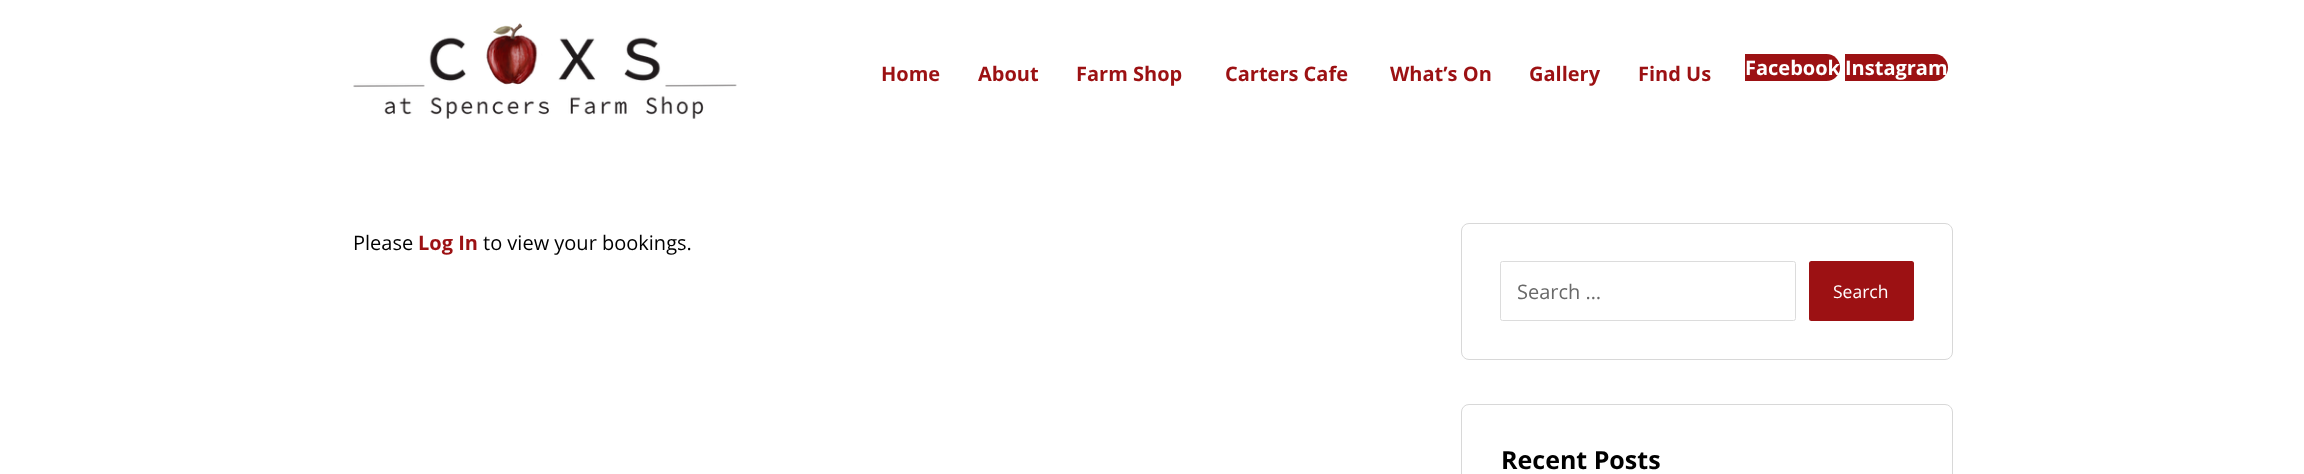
<svg xmlns="http://www.w3.org/2000/svg" width="2304" height="474">
<rect width="100%" height="100%" fill="#fff"/>
<image x="353" y="23" width="384" height="96" href="media/1.png"/>
<text x="881" y="81" style="font-family:Open Sans;font-size:20px;font-weight:bold;fill:#9c1113">Home</text>
<text x="978" y="81" style="font-family:Open Sans;font-size:20px;font-weight:bold;fill:#9c1113">About</text>
<text x="1076" y="81" style="font-family:Open Sans;font-size:20px;font-weight:bold;fill:#9c1113">Farm Shop</text>
<text x="1225" y="81" style="font-family:Open Sans;font-size:20px;font-weight:bold;fill:#9c1113">Carters Cafe</text>
<text x="1390" y="81" style="font-family:Open Sans;font-size:20px;font-weight:bold;fill:#9c1113">What’s On</text>
<text x="1529" y="81" style="font-family:Open Sans;font-size:20px;font-weight:bold;fill:#9c1113">Gallery</text>
<text x="1638" y="81" style="font-family:Open Sans;font-size:20px;font-weight:bold;fill:#9c1113">Find Us</text>
<path d="M1745 54h81.5c7.5 0 13.5 6 13.5 13.5c0 7.5-6 13.5-13.5 13.5h-81.5z" fill="#9c1113"/>
<text x="1745" y="75" style="font-family:Open Sans;font-size:20px;font-weight:bold;fill:#fff">Facebook</text>
<path d="M1845 54h89.5c7.5 0 13.5 6 13.5 13.5c0 7.5-6 13.5-13.5 13.5h-89.5z" fill="#9c1113"/>
<text x="1845" y="75" style="font-family:Open Sans;font-size:20px;font-weight:bold;fill:#fff">Instagram</text>
<text x="353" y="250" style="font-family:Open Sans;font-size:20px;fill:#000">Please</text>
<text x="418" y="250" style="font-family:Open Sans;font-size:20px;font-weight:bold;fill:#9c1113">Log In</text>
<text x="483" y="250" style="font-family:Open Sans;font-size:20px;fill:#000">to view your bookings.</text>
<rect x="1461.5" y="223.5" width="491" height="136" rx="7.5" fill="none" stroke="#d8d8d8"/>
<rect x="1500.5" y="261.5" width="295" height="59" rx="2" fill="none" stroke="#dcdcdc"/>
<text x="1517" y="299" style="font-family:Open Sans;font-size:20px;fill:#696969">Search …</text>
<rect x="1809" y="261" width="105" height="60" rx="2.5" fill="#9c1113"/>
<text x="1833" y="298" style="font-family:Open Sans;font-size:17.5px;fill:#fff">Search</text>
<rect x="1461.5" y="404.5" width="491" height="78" rx="7.5" fill="none" stroke="#d8d8d8"/>
<text x="1501" y="469" style="font-family:Open Sans;font-size:25px;font-weight:bold;fill:#000">Recent Posts</text>
</svg>
